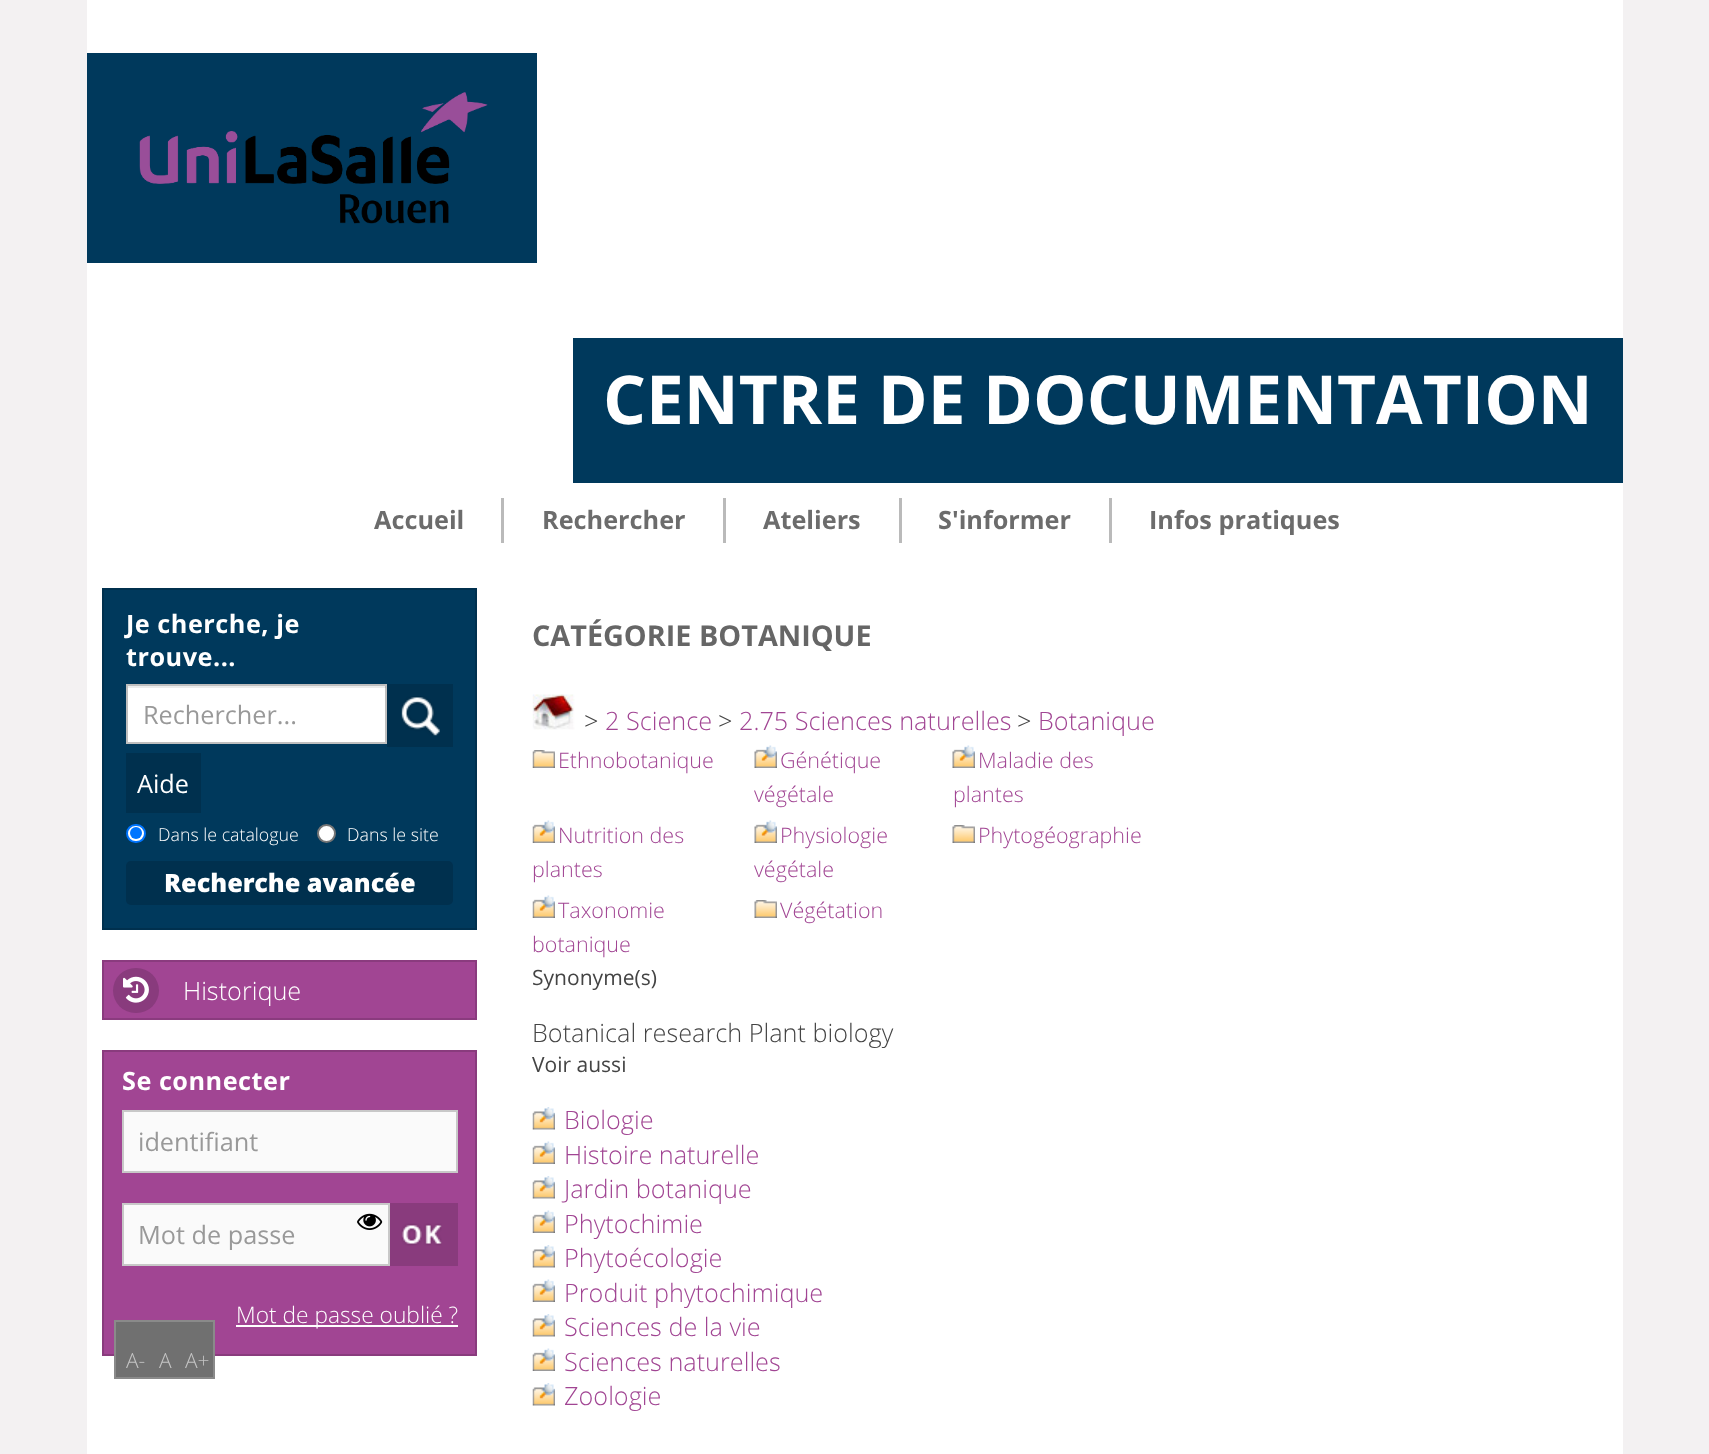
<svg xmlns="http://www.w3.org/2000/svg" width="1709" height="1454">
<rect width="100%" height="100%" fill="#f3f1f2"/>
<rect x="87" width="1536" height="1454" fill="#fff"/>
<rect x="87" y="53" width="450" height="210" fill="#00395c"/>
<image x="139" y="92" width="349" height="132" href="media/1.png"/>
<rect x="573" y="338" width="1050" height="145" fill="#00395c"/>
<text x="603" y="424" style="font-family:Open Sans;font-size:67.5px;font-weight:bold;fill:#fff">CENTRE DE DOCUMENTATION</text>
<text x="374" y="529" style="font-family:Open Sans;font-size:25.25px;font-weight:bold;fill:#6c6c6c">Accueil</text>
<rect x="501" y="498" width="3" height="45" fill="#bababa"/>
<text x="542" y="529" style="font-family:Open Sans;font-size:25.25px;font-weight:bold;fill:#6c6c6c">Rechercher</text>
<rect x="723" y="498" width="3" height="45" fill="#bababa"/>
<text x="763" y="529" style="font-family:Open Sans;font-size:25.25px;font-weight:bold;fill:#6c6c6c">Ateliers</text>
<rect x="899" y="498" width="3" height="45" fill="#bababa"/>
<text x="938" y="529" style="font-family:Open Sans;font-size:25.25px;font-weight:bold;fill:#6c6c6c">S'informer</text>
<rect x="1109" y="498" width="3" height="45" fill="#bababa"/>
<text x="1149" y="529" style="font-family:Open Sans;font-size:25.25px;font-weight:bold;fill:#6c6c6c">Infos pratiques</text>
<rect x="103" y="589" width="373" height="340" fill="#00395c" stroke="#00304e" stroke-width="2"/>
<text x="126" y="633" style="font-family:Open Sans;font-size:25.25px;font-weight:bold;letter-spacing:0.5px;fill:#fff">Je cherche, je</text>
<text x="126" y="666" style="font-family:Open Sans;font-size:25.25px;font-weight:bold;letter-spacing:0.5px;fill:#fff">trouve...</text>
<rect x="126" y="684" width="261" height="60" fill="#fff"/>
<rect x="128" y="686" width="258" height="2" fill="#ececec"/>
<rect x="127" y="685" width="259" height="58" fill="none" stroke="#00000040" stroke-width="2"/>
<text x="143" y="724" style="font-family:Open Sans;font-size:25.25px;fill:#999">Rechercher...</text>
<rect x="387" y="684" width="66" height="63" fill="#00304e"/>
<image x="401" y="696" width="39" height="40" href="media/2.png"/>
<rect x="126" y="753" width="75" height="60" fill="#00304e"/>
<text x="137" y="793" style="font-family:Open Sans;font-size:25.25px;fill:#fff">Aide</text>
<rect x="127" y="825" width="18" height="17" rx="8.5" fill="#fff" stroke="#0075ff" stroke-width="2"/>
<circle cx="136" cy="833" r="6" fill="#0075ff"/>
<text x="158" y="841" style="font-family:Open Sans;font-size:17.75px;font-weight:300;fill:#fff">Dans le catalogue</text>
<circle cx="326.5" cy="833.5" r="8.5" fill="#fff" stroke="#767676" stroke-width="2"/>
<text x="347" y="841" style="font-family:Open Sans;font-size:17.75px;font-weight:300;fill:#fff">Dans le site</text>
<rect x="126" y="861" width="327" height="44" rx="5" fill="#00304e"/>
<text x="164" y="892" style="font-family:Open Sans;font-size:25.25px;font-weight:800;fill:#fff">Recherche avancée</text>
<rect x="103" y="961" width="373" height="58" fill="#a14593" stroke="#8a3b7e" stroke-width="2"/>
<rect x="113" y="968" width="46" height="45" rx="22.5" fill="#893b7d"/>
<image x="123" y="976" width="26" height="27" href="media/3.png"/>
<text x="183" y="1000" style="font-family:Open Sans;font-size:25.25px;font-weight:300;fill:#fff">Historique</text>
<rect x="103" y="1051" width="373" height="304" fill="#a14593" stroke="#893b7d" stroke-width="2"/>
<text x="122" y="1090" style="font-family:Open Sans;font-size:25.25px;font-weight:bold;letter-spacing:0.5px;fill:#fff">Se connecter</text>
<rect x="123" y="1111" width="334" height="61" fill="#fafafa" stroke="#c8c8c8" stroke-width="2"/>
<text x="138" y="1151" style="font-family:Open Sans;font-size:25.25px;fill:#999">identifiant</text>
<rect x="123" y="1204" width="266" height="61" fill="#fafafa" stroke="#c8c8c8" stroke-width="2"/>
<image x="357" y="1213" width="26" height="17" href="media/4.png"/>
<text x="138" y="1244" style="font-family:Open Sans;font-size:25.25px;fill:#999">Mot de passe</text>
<rect x="390" y="1203" width="68" height="63" fill="#893b7d"/>
<image x="401" y="1223" width="41" height="23" href="media/5.png"/>
<rect x="236" y="1325" width="222" height="2" fill="#fff"/>
<text x="236" y="1323" style="font-family:Open Sans;font-size:22.75px;font-weight:300;fill:#fff">Mot de passe oublié ?</text>
<rect x="115" y="1321" width="99" height="57" fill="#707070" stroke="#8a8a8a" stroke-width="2"/>
<text x="126" y="1368" style="font-family:Open Sans;font-size:21px;font-weight:300;fill:#c4c4c4">A-</text>
<text x="159" y="1368" style="font-family:Open Sans;font-size:21px;font-weight:300;fill:#c4c4c4">A</text>
<text x="185" y="1368" style="font-family:Open Sans;font-size:21px;font-weight:300;fill:#c4c4c4">A+</text>
<text x="532" y="646" style="font-family:Open Sans;font-size:28.8px;font-weight:bold;fill:#666">CATÉGORIE BOTANIQUE</text>
<image x="532" y="694" width="43" height="36" href="media/6.png"/>
<text x="584" y="730" style="font-family:Open Sans;font-size:25.25px;font-weight:300;fill:#444">&gt;</text>
<text x="605" y="730" style="font-family:Open Sans;font-size:25.25px;font-weight:300;fill:#a14593">2 Science</text>
<text x="718" y="730" style="font-family:Open Sans;font-size:25.25px;font-weight:300;fill:#444">&gt;</text>
<text x="739" y="730" style="font-family:Open Sans;font-size:25.25px;font-weight:300;fill:#a14593">2.75 Sciences naturelles</text>
<text x="1017" y="730" style="font-family:Open Sans;font-size:25.25px;font-weight:300;fill:#444">&gt;</text>
<text x="1038" y="730" style="font-family:Open Sans;font-size:25.25px;font-weight:300;fill:#a14593">Botanique</text>
<image x="532" y="750" width="23" height="18" href="media/7.png"/>
<text x="558" y="768" style="font-family:Open Sans;font-size:21.5px;font-weight:300;fill:#a14593">Ethnobotanique</text>
<image x="754" y="745" width="23" height="23" href="media/8.png"/>
<text x="780" y="768" style="font-family:Open Sans;font-size:21.5px;font-weight:300;fill:#a14593">Génétique</text>
<text x="754" y="802" style="font-family:Open Sans;font-size:21.5px;font-weight:300;fill:#a14593">végétale</text>
<image x="952" y="745" width="23" height="23" href="media/9.png"/>
<text x="978" y="768" style="font-family:Open Sans;font-size:21.5px;font-weight:300;fill:#a14593">Maladie des</text>
<text x="953" y="802" style="font-family:Open Sans;font-size:21.5px;font-weight:300;fill:#a14593">plantes</text>
<image x="532" y="820" width="23" height="23" href="media/10.png"/>
<text x="558" y="843" style="font-family:Open Sans;font-size:21.5px;font-weight:300;fill:#a14593">Nutrition des</text>
<text x="532" y="877" style="font-family:Open Sans;font-size:21.5px;font-weight:300;fill:#a14593">plantes</text>
<image x="754" y="820" width="23" height="23" href="media/8.png"/>
<text x="780" y="843" style="font-family:Open Sans;font-size:21.5px;font-weight:300;fill:#a14593">Physiologie</text>
<text x="754" y="877" style="font-family:Open Sans;font-size:21.5px;font-weight:300;fill:#a14593">végétale</text>
<image x="952" y="825" width="23" height="18" href="media/11.png"/>
<text x="978" y="843" style="font-family:Open Sans;font-size:21.5px;font-weight:300;fill:#a14593">Phytogéographie</text>
<image x="532" y="895" width="23" height="23" href="media/10.png"/>
<text x="558" y="918" style="font-family:Open Sans;font-size:21.5px;font-weight:300;fill:#a14593">Taxonomie</text>
<text x="532" y="952" style="font-family:Open Sans;font-size:21.5px;font-weight:300;fill:#a14593">botanique</text>
<image x="754" y="900" width="23" height="18" href="media/12.png"/>
<text x="780" y="918" style="font-family:Open Sans;font-size:21.5px;font-weight:300;fill:#a14593">Végétation</text>
<text x="532" y="985" style="font-family:Open Sans;font-size:21px;fill:#444">Synonyme(s)</text>
<text x="532" y="1042" style="font-family:Open Sans;font-size:25.25px;font-weight:300;fill:#444">Botanical research Plant biology</text>
<text x="532" y="1072" style="font-family:Open Sans;font-size:21px;fill:#444">Voir aussi</text>
<image x="532" y="1107" width="23" height="23" href="media/13.png"/>
<text x="564" y="1129" style="font-family:Open Sans;font-size:25.25px;font-weight:300;fill:#a14593">Biologie</text>
<image x="532" y="1141" width="23" height="23" href="media/10.png"/>
<text x="564" y="1164" style="font-family:Open Sans;font-size:25.25px;font-weight:300;fill:#a14593">Histoire naturelle</text>
<image x="532" y="1176" width="23" height="23" href="media/13.png"/>
<text x="564" y="1198" style="font-family:Open Sans;font-size:25.25px;font-weight:300;fill:#a14593">Jardin botanique</text>
<image x="532" y="1210" width="23" height="23" href="media/10.png"/>
<text x="564" y="1233" style="font-family:Open Sans;font-size:25.25px;font-weight:300;fill:#a14593">Phytochimie</text>
<image x="532" y="1245" width="23" height="23" href="media/13.png"/>
<text x="564" y="1267" style="font-family:Open Sans;font-size:25.25px;font-weight:300;fill:#a14593">Phytoécologie</text>
<image x="532" y="1279" width="23" height="23" href="media/10.png"/>
<text x="564" y="1302" style="font-family:Open Sans;font-size:25.25px;font-weight:300;fill:#a14593">Produit phytochimique</text>
<image x="532" y="1314" width="23" height="23" href="media/13.png"/>
<text x="564" y="1336" style="font-family:Open Sans;font-size:25.25px;font-weight:300;fill:#a14593">Sciences de la vie</text>
<image x="532" y="1348" width="23" height="23" href="media/10.png"/>
<text x="564" y="1371" style="font-family:Open Sans;font-size:25.25px;font-weight:300;fill:#a14593">Sciences naturelles</text>
<image x="532" y="1383" width="23" height="23" href="media/13.png"/>
<text x="564" y="1405" style="font-family:Open Sans;font-size:25.25px;font-weight:300;fill:#a14593">Zoologie</text>
</svg>
